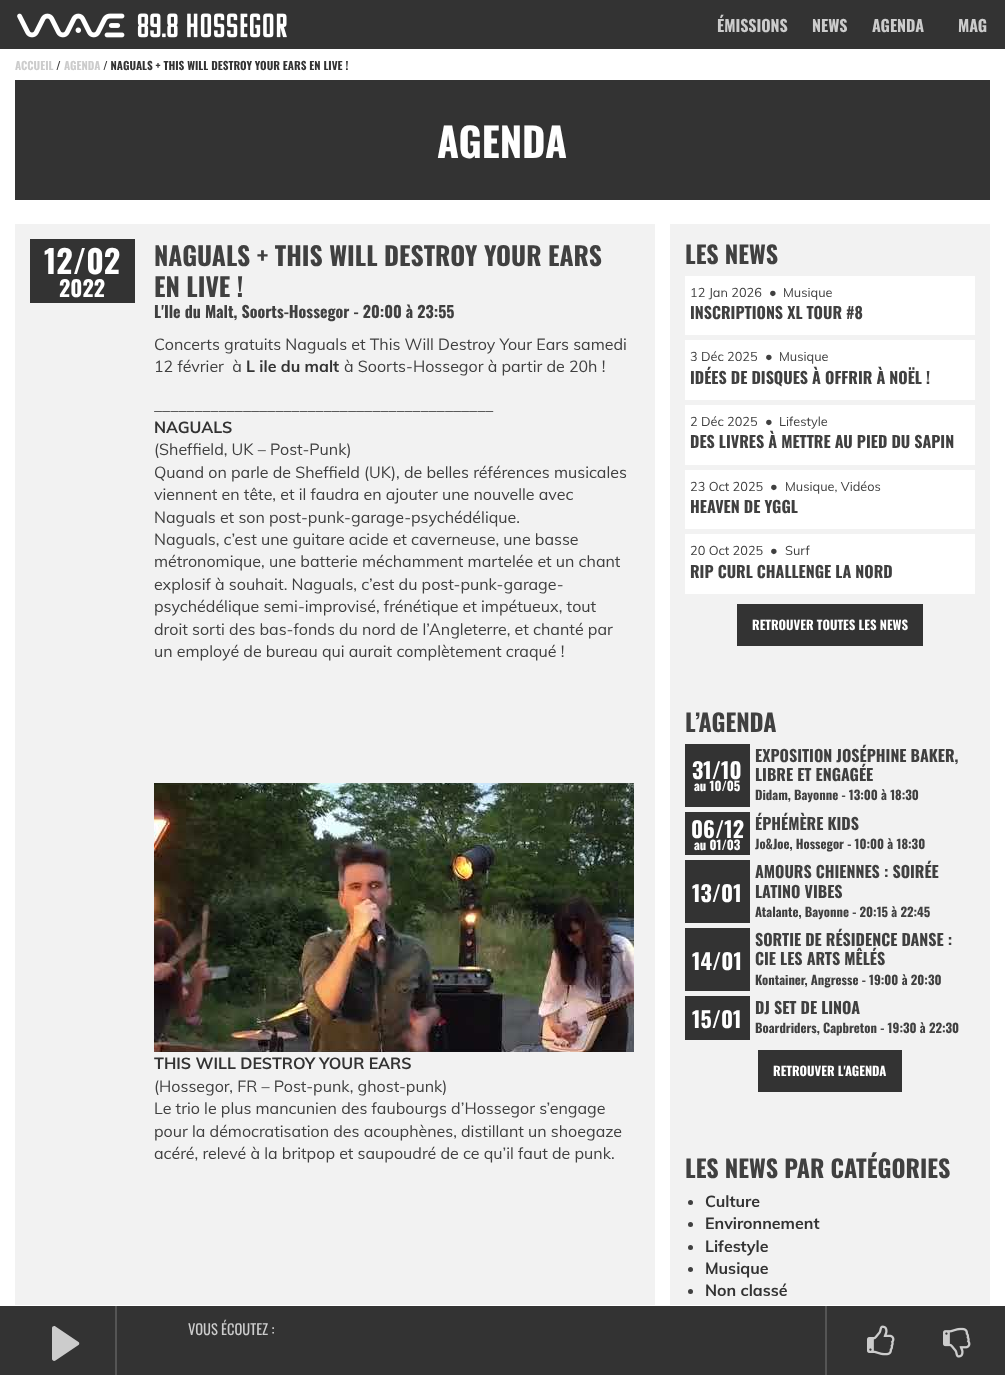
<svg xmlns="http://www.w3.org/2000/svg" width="1005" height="1375">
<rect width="100%" height="100%" fill="#fff"/>
<rect width="1005" height="49" fill="#333"/>
<image x="17" y="13" width="270" height="25" href="media/1.png"/>
<text x="717" y="32" style="font-family:Oswald;font-size:16px;font-weight:bold;fill:#ccc">ÉMISSIONS</text>
<text x="812" y="32" style="font-family:Oswald;font-size:16px;font-weight:bold;fill:#ccc">NEWS</text>
<text x="872" y="32" style="font-family:Oswald;font-size:16px;font-weight:bold;fill:#ccc">AGENDA</text>
<text x="958" y="32" style="font-family:Oswald;font-size:16px;font-weight:bold;fill:#ccc">MAG</text>
<text x="15" y="70" style="font-family:Oswald;font-size:11.2px;font-weight:bold;fill:#ccc">ACCUEIL</text>
<text x="56" y="70" style="font-family:Oswald;font-size:11.2px;font-weight:bold;fill:#333">/</text>
<text x="64" y="70" style="font-family:Oswald;font-size:11.2px;font-weight:bold;fill:#ccc">AGENDA</text>
<text x="103" y="70" style="font-family:Oswald;font-size:11.2px;font-weight:bold;fill:#333">/ NAGUALS + THIS WILL DESTROY YOUR EARS EN LIVE !</text>
<rect x="15" y="80" width="975" height="120" fill="#333"/>
<text x="437" y="158" style="font-family:Oswald;font-size:40px;font-weight:bold;fill:#fff">AGENDA</text>
<rect x="15" y="224" width="640" height="1081" fill="#f2f2f2"/>
<rect x="30" y="239" width="105" height="64" fill="#333"/>
<text x="44" y="274" style="font-family:Oswald;font-size:32px;font-weight:bold;fill:#fff">12/02</text>
<text x="59" y="297" style="font-family:Oswald;font-size:22px;font-weight:bold;fill:#fff">2022</text>
<text x="154" y="266" style="font-family:Oswald;font-size:25.6px;font-weight:bold;fill:#404040">NAGUALS + THIS WILL DESTROY YOUR EARS</text>
<text x="154" y="297" style="font-family:Oswald;font-size:25.6px;font-weight:bold;fill:#404040">EN LIVE !</text>
<text x="154" y="318" style="font-family:Oswald;font-size:16px;font-weight:bold;fill:#404040">L'Ile du Malt, Soorts-Hossegor - 20:00 à 23:55</text>
<text x="154" y="350" style="font-family:Muli;font-size:16px;fill:#404040">Concerts gratuits Naguals et This Will Destroy Your Ears samedi</text>
<text x="154" y="372" style="font-family:Muli;font-size:16px;fill:#404040" xml:space="preserve">12 février  à</text>
<text x="246" y="372" style="font-family:Muli;font-size:16px;font-weight:bold;fill:#333">L ile du malt</text>
<text x="344" y="372" style="font-family:Muli;font-size:16px;fill:#404040">à Soorts-Hossegor à partir de 20h !</text>
<text x="154" y="411" style="font-family:Muli;font-size:16px;fill:#404040">__________________________________________</text>
<text x="154" y="433" style="font-family:Muli;font-size:16px;font-weight:bold;fill:#333">NAGUALS</text>
<text x="154" y="455" style="font-family:Muli;font-size:16px;fill:#404040">(Sheffield, UK – Post-Punk)</text>
<text x="154" y="478" style="font-family:Muli;font-size:16px;fill:#404040">Quand on parle de Sheffield (UK), de belles références musicales</text>
<text x="154" y="500" style="font-family:Muli;font-size:16px;fill:#404040">viennent en tête, et il faudra en ajouter une nouvelle avec</text>
<text x="154" y="523" style="font-family:Muli;font-size:16px;fill:#404040">Naguals et son post-punk-garage-psychédélique.</text>
<text x="154" y="545" style="font-family:Muli;font-size:16px;fill:#404040">Naguals, c’est une guitare acide et caverneuse, une basse</text>
<text x="154" y="567" style="font-family:Muli;font-size:16px;fill:#404040">métronomique, une batterie méchamment martelée et un chant</text>
<text x="154" y="590" style="font-family:Muli;font-size:16px;fill:#404040">explosif à souhait. Naguals, c’est du post-punk-garage-</text>
<text x="154" y="612" style="font-family:Muli;font-size:16px;fill:#404040">psychédélique semi-improvisé, frénétique et impétueux, tout</text>
<text x="154" y="635" style="font-family:Muli;font-size:16px;fill:#404040">droit sorti des bas-fonds du nord de l’Angleterre, et chanté par</text>
<text x="154" y="657" style="font-family:Muli;font-size:16px;fill:#404040">un employé de bureau qui aurait complètement craqué !</text>
<image x="154" y="783" width="480" height="269" href="media/2.png"/>
<text x="154" y="1069" style="font-family:Muli;font-size:16px;font-weight:bold;fill:#333">THIS WILL DESTROY YOUR EARS</text>
<text x="154" y="1092" style="font-family:Muli;font-size:16px;fill:#404040">(Hossegor, FR – Post-punk, ghost-punk)</text>
<text x="154" y="1114" style="font-family:Muli;font-size:16px;fill:#404040">Le trio le plus mancunien des faubourgs d’Hossegor s’engage</text>
<text x="154" y="1137" style="font-family:Muli;font-size:16px;fill:#404040">pour la démocratisation des acouphènes, distillant un shoegaze</text>
<text x="154" y="1159" style="font-family:Muli;font-size:16px;fill:#404040">acéré, relevé à la britpop et saupoudré de ce qu’il faut de punk.</text>
<rect x="670" y="224" width="320" height="1081" fill="#f2f2f2"/>
<text x="685" y="264" style="font-family:Oswald;font-size:24px;font-weight:bold;fill:#404040">LES NEWS</text>
<rect x="685" y="276" width="290" height="59" fill="#fff"/>
<text x="690" y="297" style="font-family:Muli;font-size:12.75px;fill:#404040">12 Jan 2026</text>
<text x="769" y="297" style="font-family:Liberation Sans;font-size:12.75px;fill:#404040">●</text>
<text x="783" y="297" style="font-family:Muli;font-size:12.75px;fill:#404040">Musique</text>
<text x="690" y="319" style="font-family:Oswald;font-size:16px;font-weight:bold;fill:#404040">INSCRIPTIONS XL TOUR #8</text>
<rect x="685" y="340" width="290" height="60" fill="#fff"/>
<text x="690" y="361" style="font-family:Muli;font-size:12.75px;fill:#404040">3 Déc 2025</text>
<text x="765" y="361" style="font-family:Liberation Sans;font-size:12.75px;fill:#404040">●</text>
<text x="779" y="361" style="font-family:Muli;font-size:12.75px;fill:#404040">Musique</text>
<text x="690" y="384" style="font-family:Oswald;font-size:16px;font-weight:bold;fill:#404040">IDÉES DE DISQUES À OFFRIR À NOËL !</text>
<rect x="685" y="405" width="290" height="60" fill="#fff"/>
<text x="690" y="426" style="font-family:Muli;font-size:12.75px;fill:#404040">2 Déc 2025</text>
<text x="765" y="426" style="font-family:Liberation Sans;font-size:12.75px;fill:#404040">●</text>
<text x="779" y="426" style="font-family:Muli;font-size:12.75px;fill:#404040">Lifestyle</text>
<text x="690" y="448" style="font-family:Oswald;font-size:16px;font-weight:bold;fill:#404040">DES LIVRES À METTRE AU PIED DU SAPIN</text>
<rect x="685" y="470" width="290" height="59" fill="#fff"/>
<text x="690" y="491" style="font-family:Muli;font-size:12.75px;fill:#404040">23 Oct 2025</text>
<text x="770" y="491" style="font-family:Liberation Sans;font-size:12.75px;fill:#404040">●</text>
<text x="785" y="491" style="font-family:Muli;font-size:12.75px;fill:#404040">Musique, Vidéos</text>
<text x="690" y="513" style="font-family:Oswald;font-size:16px;font-weight:bold;fill:#404040">HEAVEN DE YGGL</text>
<rect x="685" y="534" width="290" height="60" fill="#fff"/>
<text x="690" y="555" style="font-family:Muli;font-size:12.75px;fill:#404040">20 Oct 2025</text>
<text x="770" y="555" style="font-family:Liberation Sans;font-size:12.75px;fill:#404040">●</text>
<text x="785" y="555" style="font-family:Muli;font-size:12.75px;fill:#404040">Surf</text>
<text x="690" y="578" style="font-family:Oswald;font-size:16px;font-weight:bold;fill:#404040">RIP CURL CHALLENGE LA NORD</text>
<rect x="737" y="604" width="186" height="42" fill="#333"/>
<text x="752" y="630" style="font-family:Oswald;font-size:12.75px;font-weight:bold;fill:#fff">RETROUVER TOUTES LES NEWS</text>
<text x="685" y="732" style="font-family:Oswald;font-size:24px;font-weight:bold;fill:#404040">L’AGENDA</text>
<rect x="685" y="744" width="65" height="63" fill="#333"/>
<text x="692" y="779" style="font-family:Oswald;font-size:22px;font-weight:bold;fill:#fff">31/10</text>
<text x="694" y="791" style="font-family:Oswald;font-size:12.75px;font-weight:bold;fill:#fff">au 10/05</text>
<text x="755" y="762" style="font-family:Oswald;font-size:16px;font-weight:bold;fill:#404040">EXPOSITION JOSÉPHINE BAKER,</text>
<text x="755" y="781" style="font-family:Oswald;font-size:16px;font-weight:bold;fill:#404040">LIBRE ET ENGAGÉE</text>
<text x="755" y="800" style="font-family:Oswald;font-size:12.75px;font-weight:bold;fill:#404040">Didam, Bayonne - 13:00 à 18:30</text>
<rect x="685" y="812" width="65" height="43" fill="#333"/>
<text x="691" y="838" style="font-family:Oswald;font-size:22px;font-weight:bold;fill:#fff">06/12</text>
<text x="694" y="850" style="font-family:Oswald;font-size:12.75px;font-weight:bold;fill:#fff">au 01/03</text>
<text x="755" y="830" style="font-family:Oswald;font-size:16px;font-weight:bold;fill:#404040">ÉPHÉMÈRE KIDS</text>
<text x="755" y="849" style="font-family:Oswald;font-size:12.75px;font-weight:bold;fill:#404040">Jo&amp;Joe, Hossegor - 10:00 à 18:30</text>
<rect x="685" y="860" width="65" height="63" fill="#333"/>
<text x="692" y="902" style="font-family:Oswald;font-size:22px;font-weight:bold;fill:#fff">13/01</text>
<text x="755" y="878" style="font-family:Oswald;font-size:16px;font-weight:bold;fill:#404040">AMOURS CHIENNES : SOIRÉE</text>
<text x="755" y="898" style="font-family:Oswald;font-size:16px;font-weight:bold;fill:#404040">LATINO VIBES</text>
<text x="755" y="917" style="font-family:Oswald;font-size:12.75px;font-weight:bold;fill:#404040">Atalante, Bayonne - 20:15 à 22:45</text>
<rect x="685" y="928" width="65" height="63" fill="#333"/>
<text x="692" y="970" style="font-family:Oswald;font-size:22px;font-weight:bold;fill:#fff">14/01</text>
<text x="755" y="946" style="font-family:Oswald;font-size:16px;font-weight:bold;fill:#404040">SORTIE DE RÉSIDENCE DANSE :</text>
<text x="755" y="965" style="font-family:Oswald;font-size:16px;font-weight:bold;fill:#404040">CIE LES ARTS MÊLÉS</text>
<text x="755" y="985" style="font-family:Oswald;font-size:12.75px;font-weight:bold;fill:#404040">Kontainer, Angresse - 19:00 à 20:30</text>
<rect x="685" y="996" width="65" height="44" fill="#333"/>
<text x="692" y="1028" style="font-family:Oswald;font-size:22px;font-weight:bold;fill:#fff">15/01</text>
<text x="755" y="1014" style="font-family:Oswald;font-size:16px;font-weight:bold;fill:#404040">DJ SET DE LINOA</text>
<text x="755" y="1033" style="font-family:Oswald;font-size:12.75px;font-weight:bold;fill:#404040">Boardriders, Capbreton - 19:30 à 22:30</text>
<rect x="758" y="1050" width="144" height="42" fill="#333"/>
<text x="773" y="1076" style="font-family:Oswald;font-size:12.75px;font-weight:bold;fill:#fff">RETROUVER L'AGENDA</text>
<text x="685" y="1178" style="font-family:Oswald;font-size:24px;font-weight:bold;fill:#404040">LES NEWS PAR CATÉGORIES</text>
<circle cx="690.5" cy="1202.5" r="2.5" fill="#404040"/>
<text x="705" y="1207" style="font-family:Muli;font-size:16px;font-weight:bold;fill:#333">Culture</text>
<circle cx="690.5" cy="1224.5" r="2.5" fill="#404040"/>
<text x="705" y="1229" style="font-family:Muli;font-size:16px;font-weight:bold;fill:#333">Environnement</text>
<circle cx="690.5" cy="1247.5" r="2.5" fill="#404040"/>
<text x="705" y="1252" style="font-family:Muli;font-size:16px;font-weight:bold;fill:#333">Lifestyle</text>
<circle cx="690.5" cy="1269.5" r="2.5" fill="#404040"/>
<text x="705" y="1274" style="font-family:Muli;font-size:16px;font-weight:bold;fill:#333">Musique</text>
<circle cx="690.5" cy="1291.5" r="2.5" fill="#404040"/>
<text x="705" y="1296" style="font-family:Muli;font-size:16px;font-weight:bold;fill:#333">Non classé</text>
<rect y="1306" width="1005" height="69" fill="#333"/>
<rect x="115" y="1306" width="2" height="69" fill="#555"/>
<path d="M78.5 1342l-23-15.5c-1.5-1-3.5 0-3.5 1.5v31c0 1.5 2 2.5 3.5 1.5l23-15.5c1-.5 1-2.5 0-3z" fill="#ccc"/>
<text x="188" y="1335" style="font-family:Oswald;font-size:14.5px;fill:#ccc">VOUS ÉCOUTEZ :</text>
<rect x="825" y="1306" width="2" height="69" fill="#555"/>
<image x="867" y="1325" width="28" height="31" href="media/3.png"/>
<image x="943" y="1327" width="28" height="31" href="media/4.png"/>
</svg>
